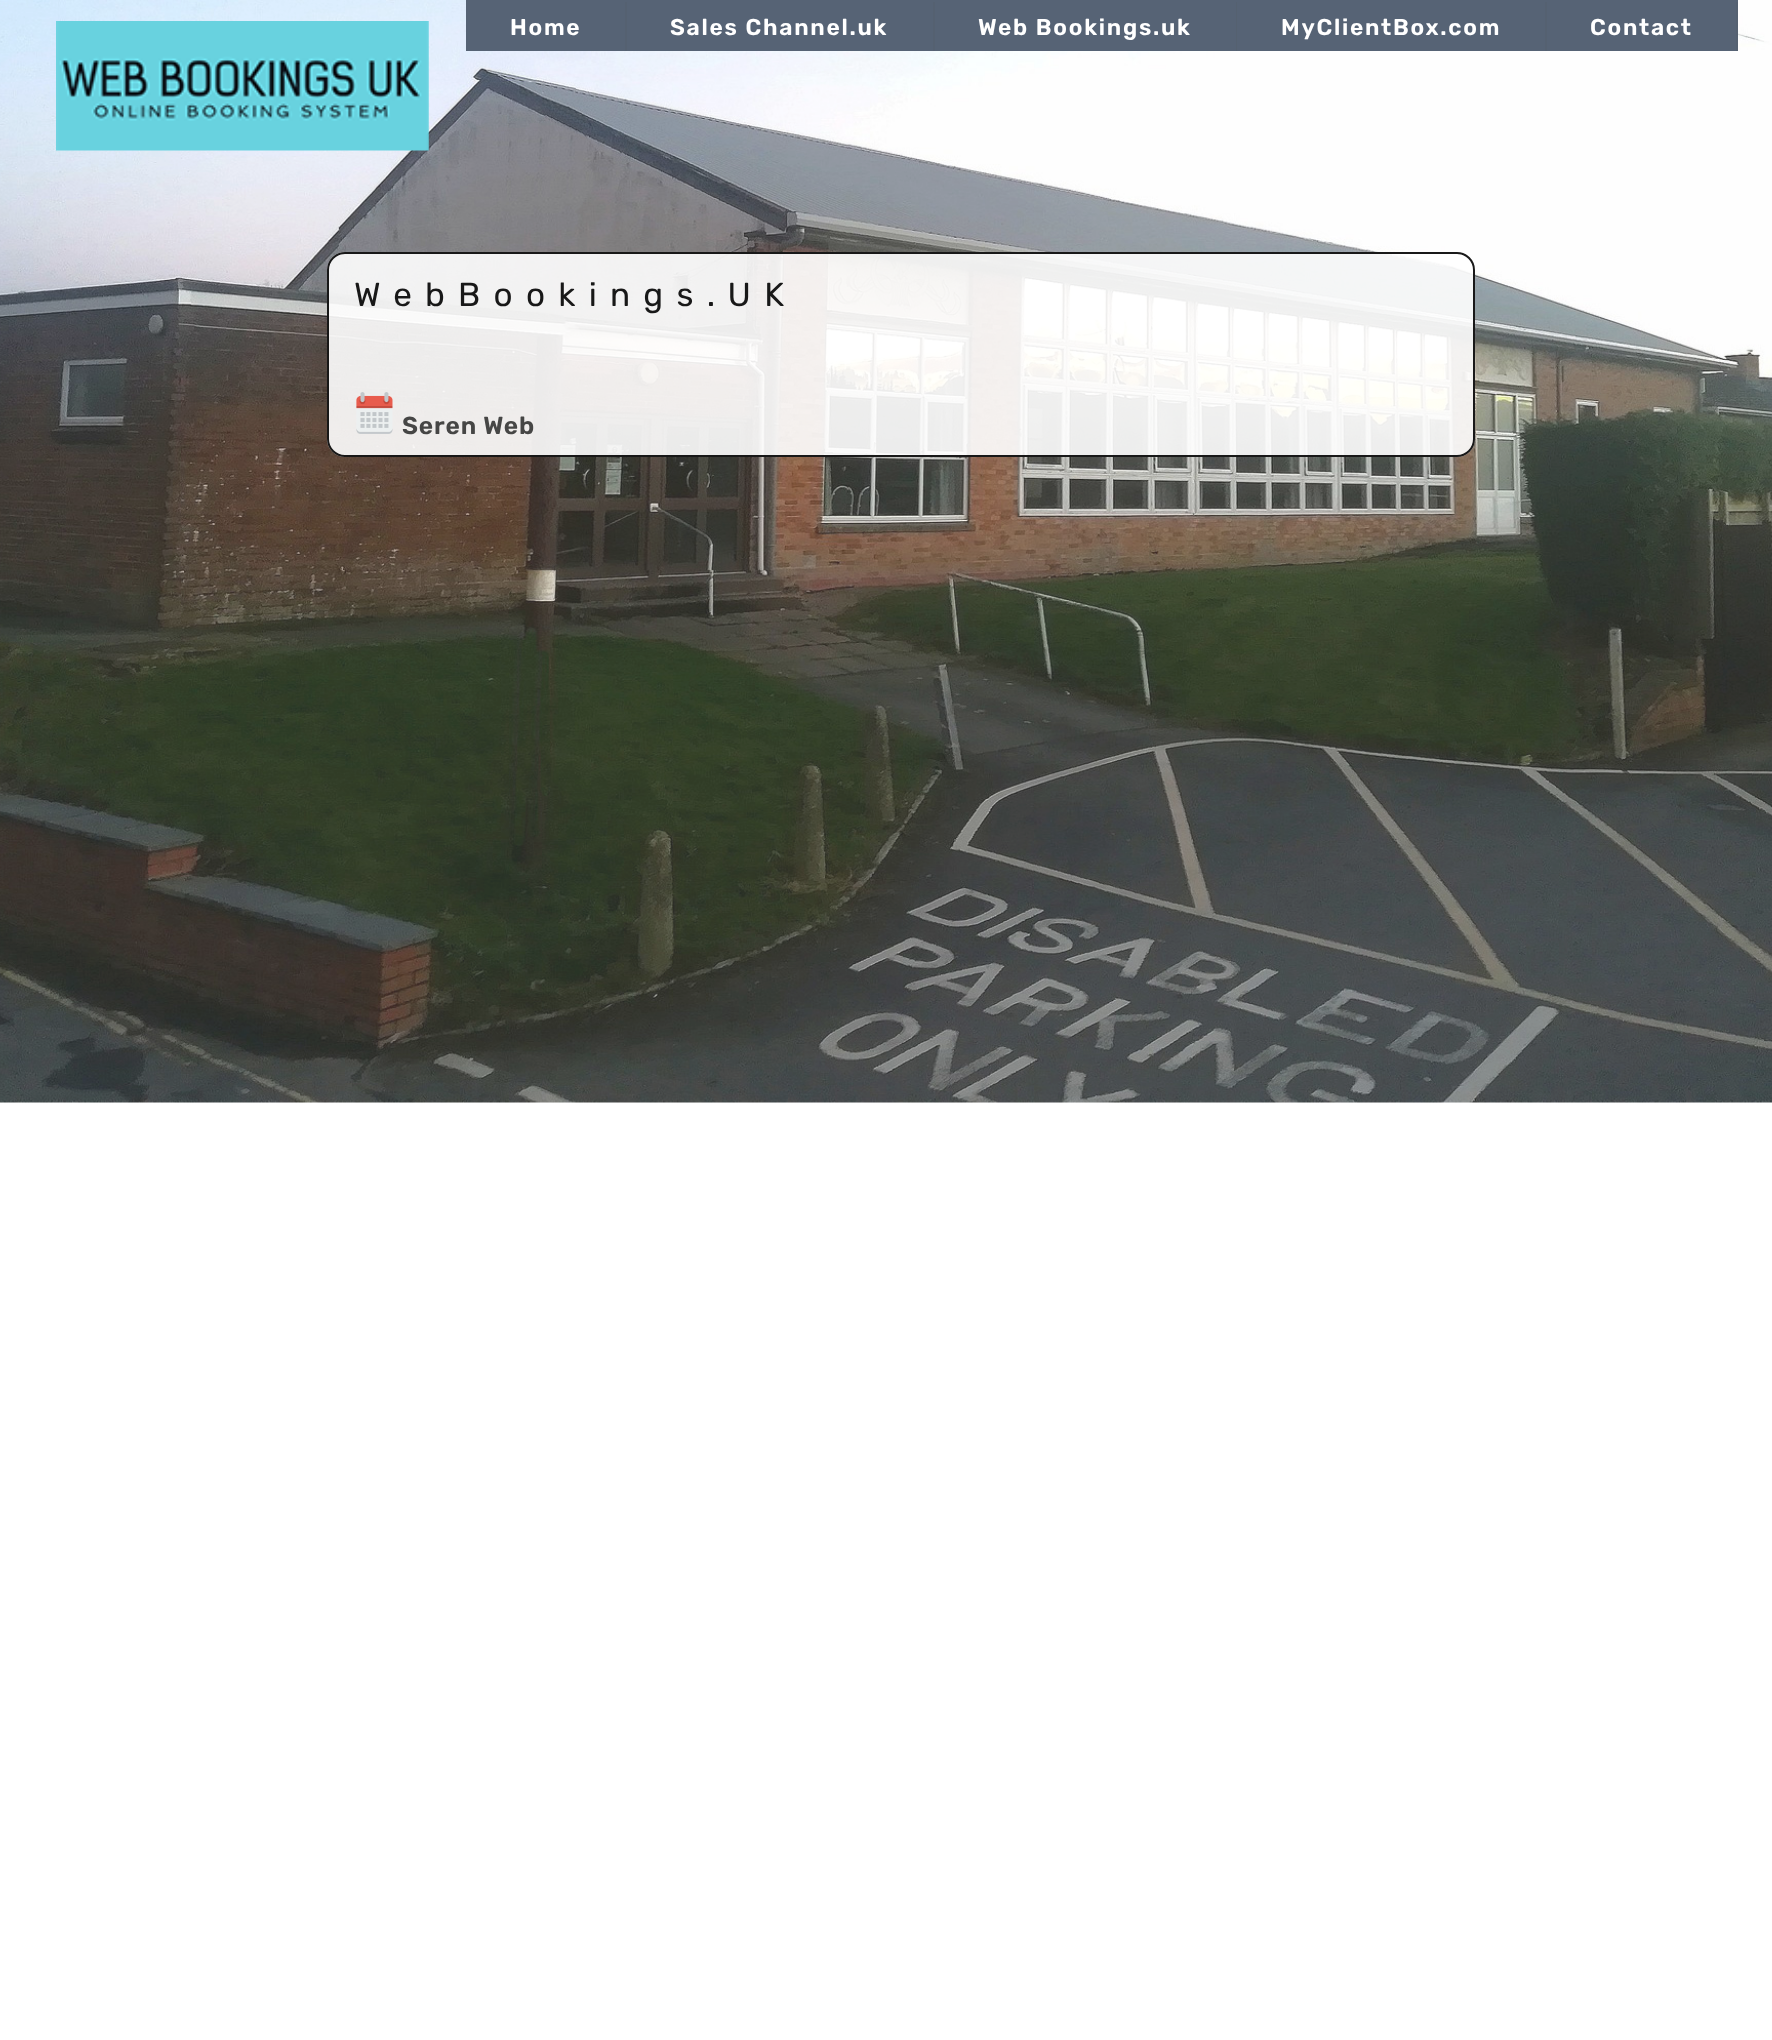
<svg xmlns="http://www.w3.org/2000/svg" width="1772" height="2040">
<rect width="100%" height="100%" fill="#fff"/>
<image x="0" y="0" width="1772" height="1103" href="media/1.png"/>
<image x="56" y="21" width="373" height="130" href="media/2.png"/>
<rect x="466" width="1272" height="2" fill="#566375"/>
<rect x="466" y="2" width="159" height="49" fill="#566375"/>
<rect x="625" y="2" width="2" height="49" fill="#556171"/>
<text x="510" y="35" style="font-family:Rubik;font-size:22.75px;font-weight:600;letter-spacing:1.75px;fill:#fff">Home</text>
<rect x="627" y="2" width="306" height="49" fill="#566375"/>
<rect x="933" y="2" width="2" height="49" fill="#556171"/>
<text x="670" y="35" style="font-family:Rubik;font-size:22.75px;font-weight:600;letter-spacing:1.75px;fill:#fff">Sales Channel.uk</text>
<rect x="935" y="2" width="610" height="49" fill="#566375"/>
<rect x="1236" y="2" width="1" height="49" fill="#5050501f"/>
<text x="978" y="35" style="font-family:Rubik;font-size:22.75px;font-weight:600;letter-spacing:1.75px;fill:#fff">Web Bookings.uk</text>
<rect x="1545" y="2" width="2" height="49" fill="#556171"/>
<text x="1281" y="35" style="font-family:Rubik;font-size:22.75px;font-weight:600;letter-spacing:1.75px;fill:#fff">MyClientBox.com</text>
<rect x="1547" y="2" width="189" height="49" fill="#566375"/>
<rect x="1736" y="2" width="2" height="49" fill="#556171"/>
<text x="1590" y="35" style="font-family:Rubik;font-size:22.75px;font-weight:600;letter-spacing:1.75px;fill:#fff">Contact</text>
<rect x="327" y="252" width="1148" height="205" rx="18" fill="#ffffffe6"/>
<rect x="328" y="253" width="1146" height="203" rx="17" fill="none" stroke="#000000e6" stroke-width="2"/>
<text x="354" y="306" style="font-family:Rubik;font-size:33.25px;letter-spacing:13.25px;fill:#181818">WebBookings.UK</text>
<image x="356" y="392" width="37" height="42" href="media/3.png"/>
<text x="402" y="434" style="font-family:Rubik;font-size:24.5px;font-weight:600;letter-spacing:0.9px;fill:#464645">Seren Web</text>
</svg>
